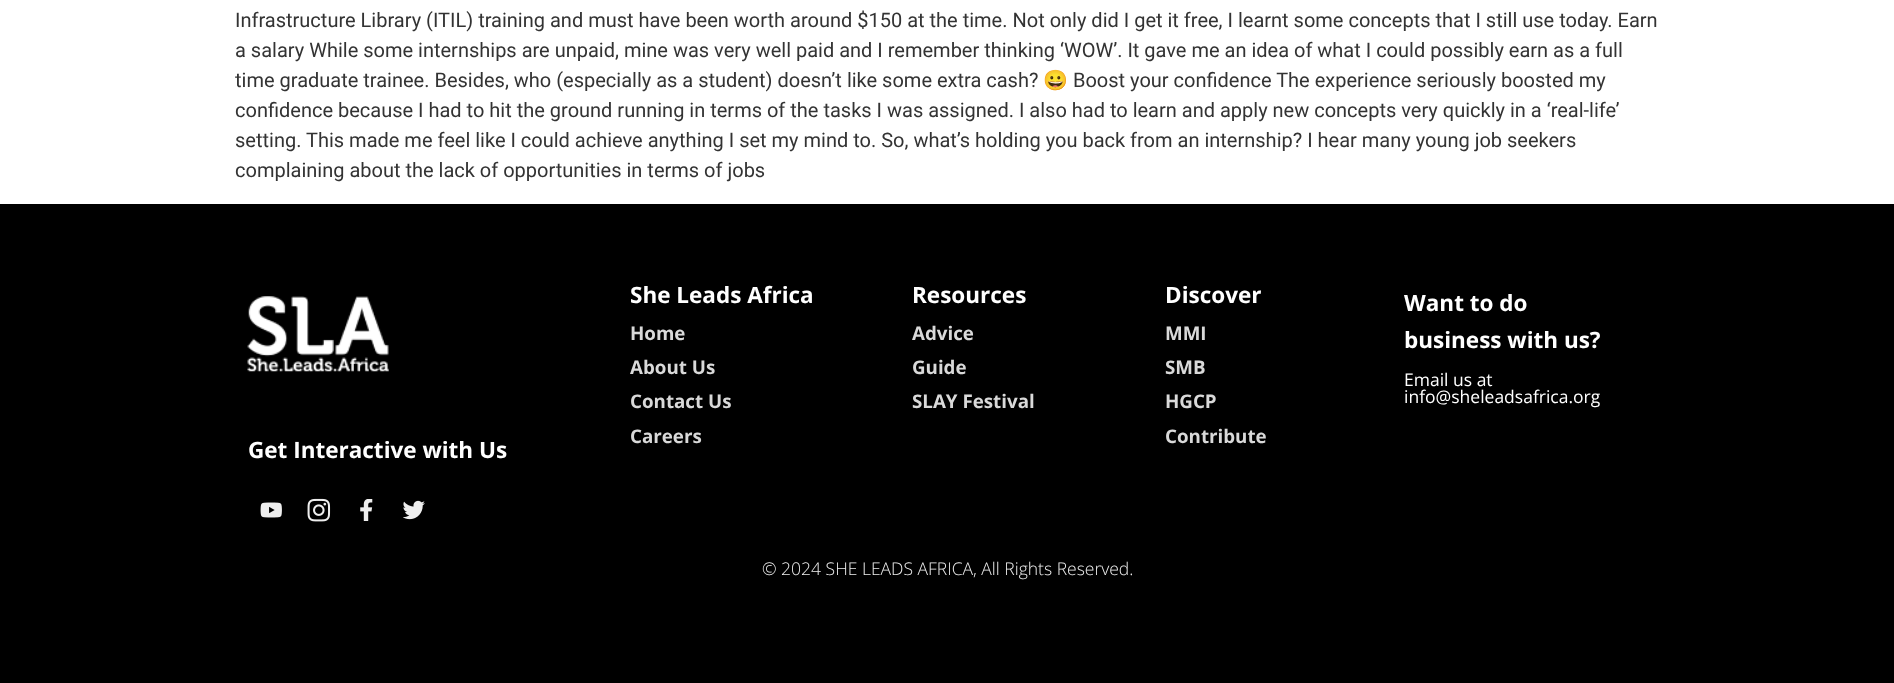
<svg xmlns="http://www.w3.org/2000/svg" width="1894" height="683">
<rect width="100%" height="100%" fill="#fff"/>
<text x="235" y="27" style="font-family:Roboto;font-size:20px;fill:#333">Infrastructure Library (ITIL) training and must have been worth around $150 at the time. Not only did I get it free, I learnt some concepts that I still use today. Earn</text>
<text x="235" y="57" style="font-family:Roboto;font-size:20px;fill:#333">a salary While some internships are unpaid, mine was very well paid and I remember thinking ‘WOW’. It gave me an idea of what I could possibly earn as a full</text>
<text x="235" y="87" style="font-family:Roboto;font-size:20px;fill:#333">time graduate trainee. Besides, who (especially as a student) doesn’t like some extra cash?</text>
<text x="1043" y="87" style="font-family:Noto Color Emoji;font-size:20px;fill:#333">😀</text>
<text x="1073" y="87" style="font-family:Roboto;font-size:20px;fill:#333">Boost your confidence The experience seriously boosted my</text>
<text x="235" y="117" style="font-family:Roboto;font-size:20px;fill:#333">confidence because I had to hit the ground running in terms of the tasks I was assigned. I also had to learn and apply new concepts very quickly in a ‘real-life’</text>
<text x="235" y="147" style="font-family:Roboto;font-size:20px;fill:#333">setting. This made me feel like I could achieve anything I set my mind to. So, what’s holding you back from an internship? I hear many young job seekers</text>
<text x="235" y="177" style="font-family:Roboto;font-size:20px;fill:#333">complaining about the lack of opportunities in terms of jobs</text>
<rect y="204" width="1894" height="479" fill="#000"/>
<text x="630" y="303" style="font-family:Open Sans;font-size:22.5px;font-weight:bold;fill:#fff">She Leads Africa</text>
<text x="630" y="340" style="font-family:Open Sans;font-size:18.75px;font-weight:bold;fill:#d9d9d9">Home</text>
<text x="630" y="374" style="font-family:Open Sans;font-size:18.75px;font-weight:bold;fill:#d9d9d9">About Us</text>
<text x="630" y="408" style="font-family:Open Sans;font-size:18.75px;font-weight:bold;fill:#d9d9d9">Contact Us</text>
<text x="630" y="443" style="font-family:Open Sans;font-size:18.75px;font-weight:bold;fill:#d9d9d9">Careers</text>
<text x="912" y="303" style="font-family:Open Sans;font-size:22.5px;font-weight:bold;fill:#fff">Resources</text>
<text x="912" y="340" style="font-family:Open Sans;font-size:18.75px;font-weight:bold;fill:#d9d9d9">Advice</text>
<text x="912" y="374" style="font-family:Open Sans;font-size:18.75px;font-weight:bold;fill:#d9d9d9">Guide</text>
<text x="912" y="408" style="font-family:Open Sans;font-size:18.75px;font-weight:bold;fill:#d9d9d9">SLAY Festival</text>
<text x="1165" y="303" style="font-family:Open Sans;font-size:22.5px;font-weight:bold;fill:#fff">Discover</text>
<text x="1165" y="340" style="font-family:Open Sans;font-size:18.75px;font-weight:bold;fill:#d9d9d9">MMI</text>
<text x="1165" y="374" style="font-family:Open Sans;font-size:18.75px;font-weight:bold;fill:#d9d9d9">SMB</text>
<text x="1165" y="408" style="font-family:Open Sans;font-size:18.75px;font-weight:bold;fill:#d9d9d9">HGCP</text>
<text x="1165" y="443" style="font-family:Open Sans;font-size:18.75px;font-weight:bold;fill:#d9d9d9">Contribute</text>
<text x="1404" y="311" style="font-family:Open Sans;font-size:22.5px;font-weight:bold;fill:#fff">Want to do</text>
<text x="1404" y="348" style="font-family:Open Sans;font-size:22.5px;font-weight:bold;fill:#fff">business with us?</text>
<text x="1404" y="386" style="font-family:Open Sans;font-size:17.5px;fill:#fff">Email us at</text>
<text x="1404" y="403" style="font-family:Open Sans;font-size:17.5px;fill:#fff">info@sheleadsafrica.org</text>
<image x="247" y="296" width="142" height="76" href="media/1.png"/>
<text x="248" y="458" style="font-family:Open Sans;font-size:22.5px;font-weight:bold;fill:#fff">Get Interactive with Us</text>
<image x="260" y="502" width="22" height="16" href="media/2.png"/>
<image x="307" y="498" width="24" height="24" href="media/3.png"/>
<image x="360" y="499" width="13" height="22" href="media/4.png"/>
<image x="403" y="500" width="22" height="20" href="media/5.png"/>
<text x="762" y="575" style="font-family:Open Sans;font-size:17.5px;font-weight:300;fill:#eee">© 2024 SHE LEADS AFRICA, All Rights Reserved.</text>
</svg>
